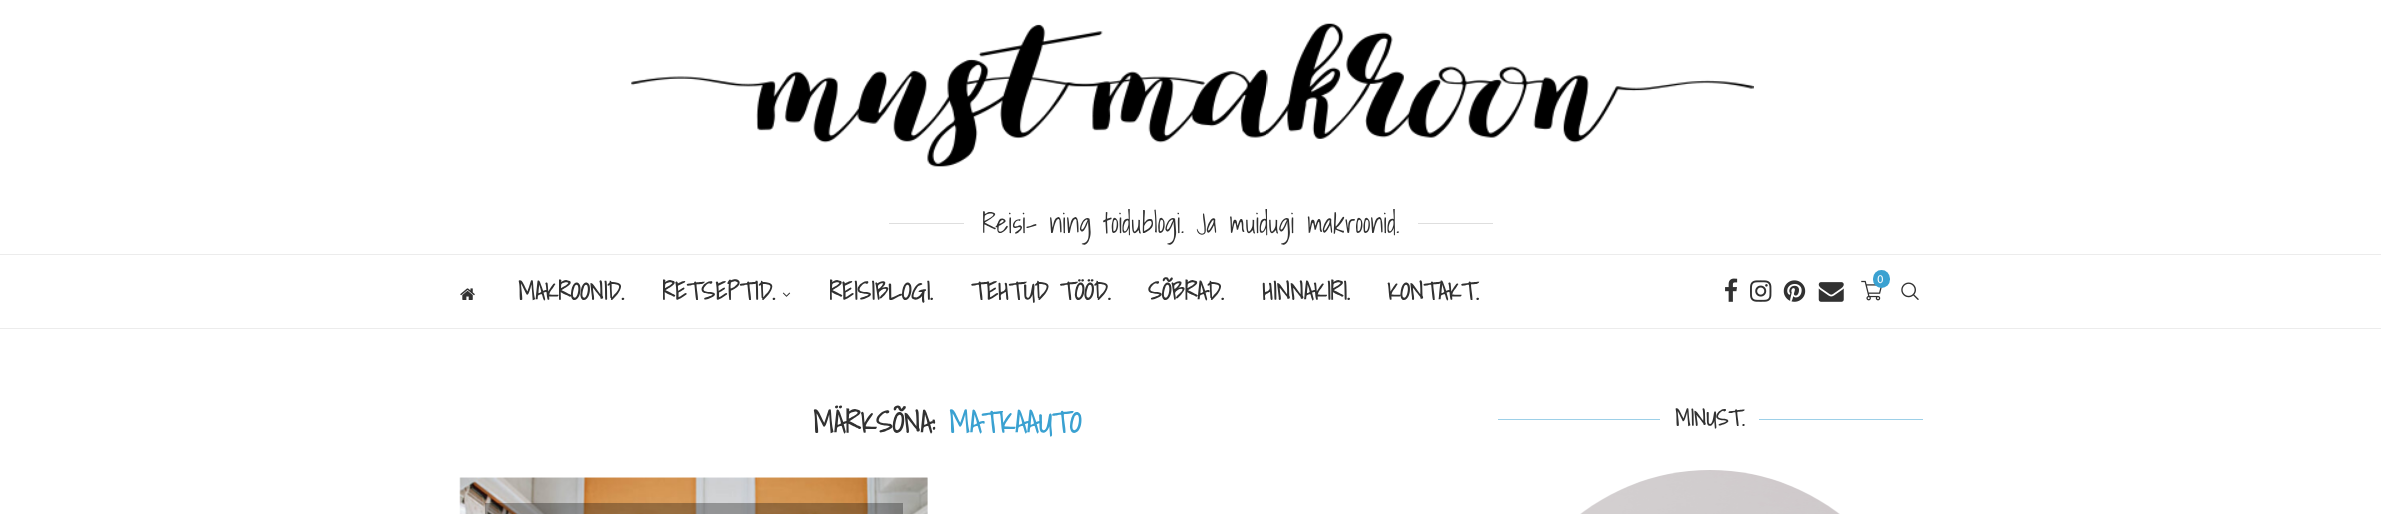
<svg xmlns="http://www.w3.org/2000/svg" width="2381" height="514">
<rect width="100%" height="100%" fill="#fff"/>
<image x="631" y="23" width="1123" height="144" href="media/1.png"/>
<rect x="889" y="223" width="75" height="1" fill="#dedede"/>
<text x="982" y="233" style="font-family:Shadows Into Light;font-size:27.5px;font-weight:300;fill:#313131">Reisi- ning toidublogi. Ja muidugi makroonid.</text>
<rect x="1418" y="223" width="75" height="1" fill="#dedede"/>
<rect y="254" width="2381" height="1" fill="#ececec"/>
<rect y="328" width="2381" height="1" fill="#ececec"/>
<image x="460" y="288" width="15" height="12" href="media/2.png"/>
<text x="518" y="300" style="font-family:Shadows Into Light;font-size:25px;font-weight:bold;fill:#313131">MAKROONID.</text>
<text x="662" y="300" style="font-family:Shadows Into Light;font-size:25px;font-weight:bold;fill:#313131">RETSEPTID.</text>
<image x="782" y="292" width="9" height="5" href="media/3.png"/>
<text x="829" y="300" style="font-family:Shadows Into Light;font-size:25px;font-weight:bold;fill:#313131">REISIBLOGI.</text>
<text x="971" y="300" style="font-family:Shadows Into Light;font-size:25px;font-weight:bold;fill:#313131">TEHTUD TÖÖD.</text>
<text x="1148" y="300" style="font-family:Shadows Into Light;font-size:25px;font-weight:bold;fill:#313131">SÕBRAD.</text>
<text x="1262" y="300" style="font-family:Shadows Into Light;font-size:25px;font-weight:bold;fill:#313131">HINNAKIRI.</text>
<text x="1387" y="300" style="font-family:Shadows Into Light;font-size:25px;font-weight:bold;fill:#313131">KONTAKT.</text>
<image x="1725" y="278" width="13" height="24" href="media/4.png"/>
<image x="1750" y="280" width="22" height="22" href="media/5.png"/>
<image x="1783" y="280" width="23" height="22" href="media/6.png"/>
<image x="1818" y="282" width="26" height="20" href="media/7.png"/>
<image x="1861" y="280" width="21" height="21" href="media/8.png"/>
<rect x="1873" y="270" width="17" height="18" rx="8.5" fill="#3aa1d1"/>
<text x="1877" y="283" style="font-family:ABeeZee;font-size:11px;fill:#fff">0</text>
<image x="1901" y="282" width="18" height="18" href="media/9.png"/>
<text x="813" y="433" style="font-family:Shadows Into Light;font-size:30px;font-weight:bold;fill:#313131">MÄRKSÕNA:</text>
<text x="949" y="433" style="font-family:Shadows Into Light;font-size:30px;font-weight:bold;fill:#3aa1d1">MATKAAUTO</text>
<rect x="460" y="478" width="468" height="36" fill="#f5f5f5"/>
<image x="459" y="477" width="469" height="37" href="media/10.png"/>
<rect x="485" y="503" width="418" height="11" fill="#0000004d"/>
<rect x="1498" y="419" width="162" height="1" fill="#9dd0e8"/>
<text x="1675" y="426" style="font-family:Shadows Into Light;font-size:22.5px;font-weight:bold;fill:#313131">MINUST.</text>
<rect x="1759" y="419" width="164" height="1" fill="#9dd0e8"/>
<image x="1580" y="470" width="260" height="44" href="media/11.png"/>
</svg>
